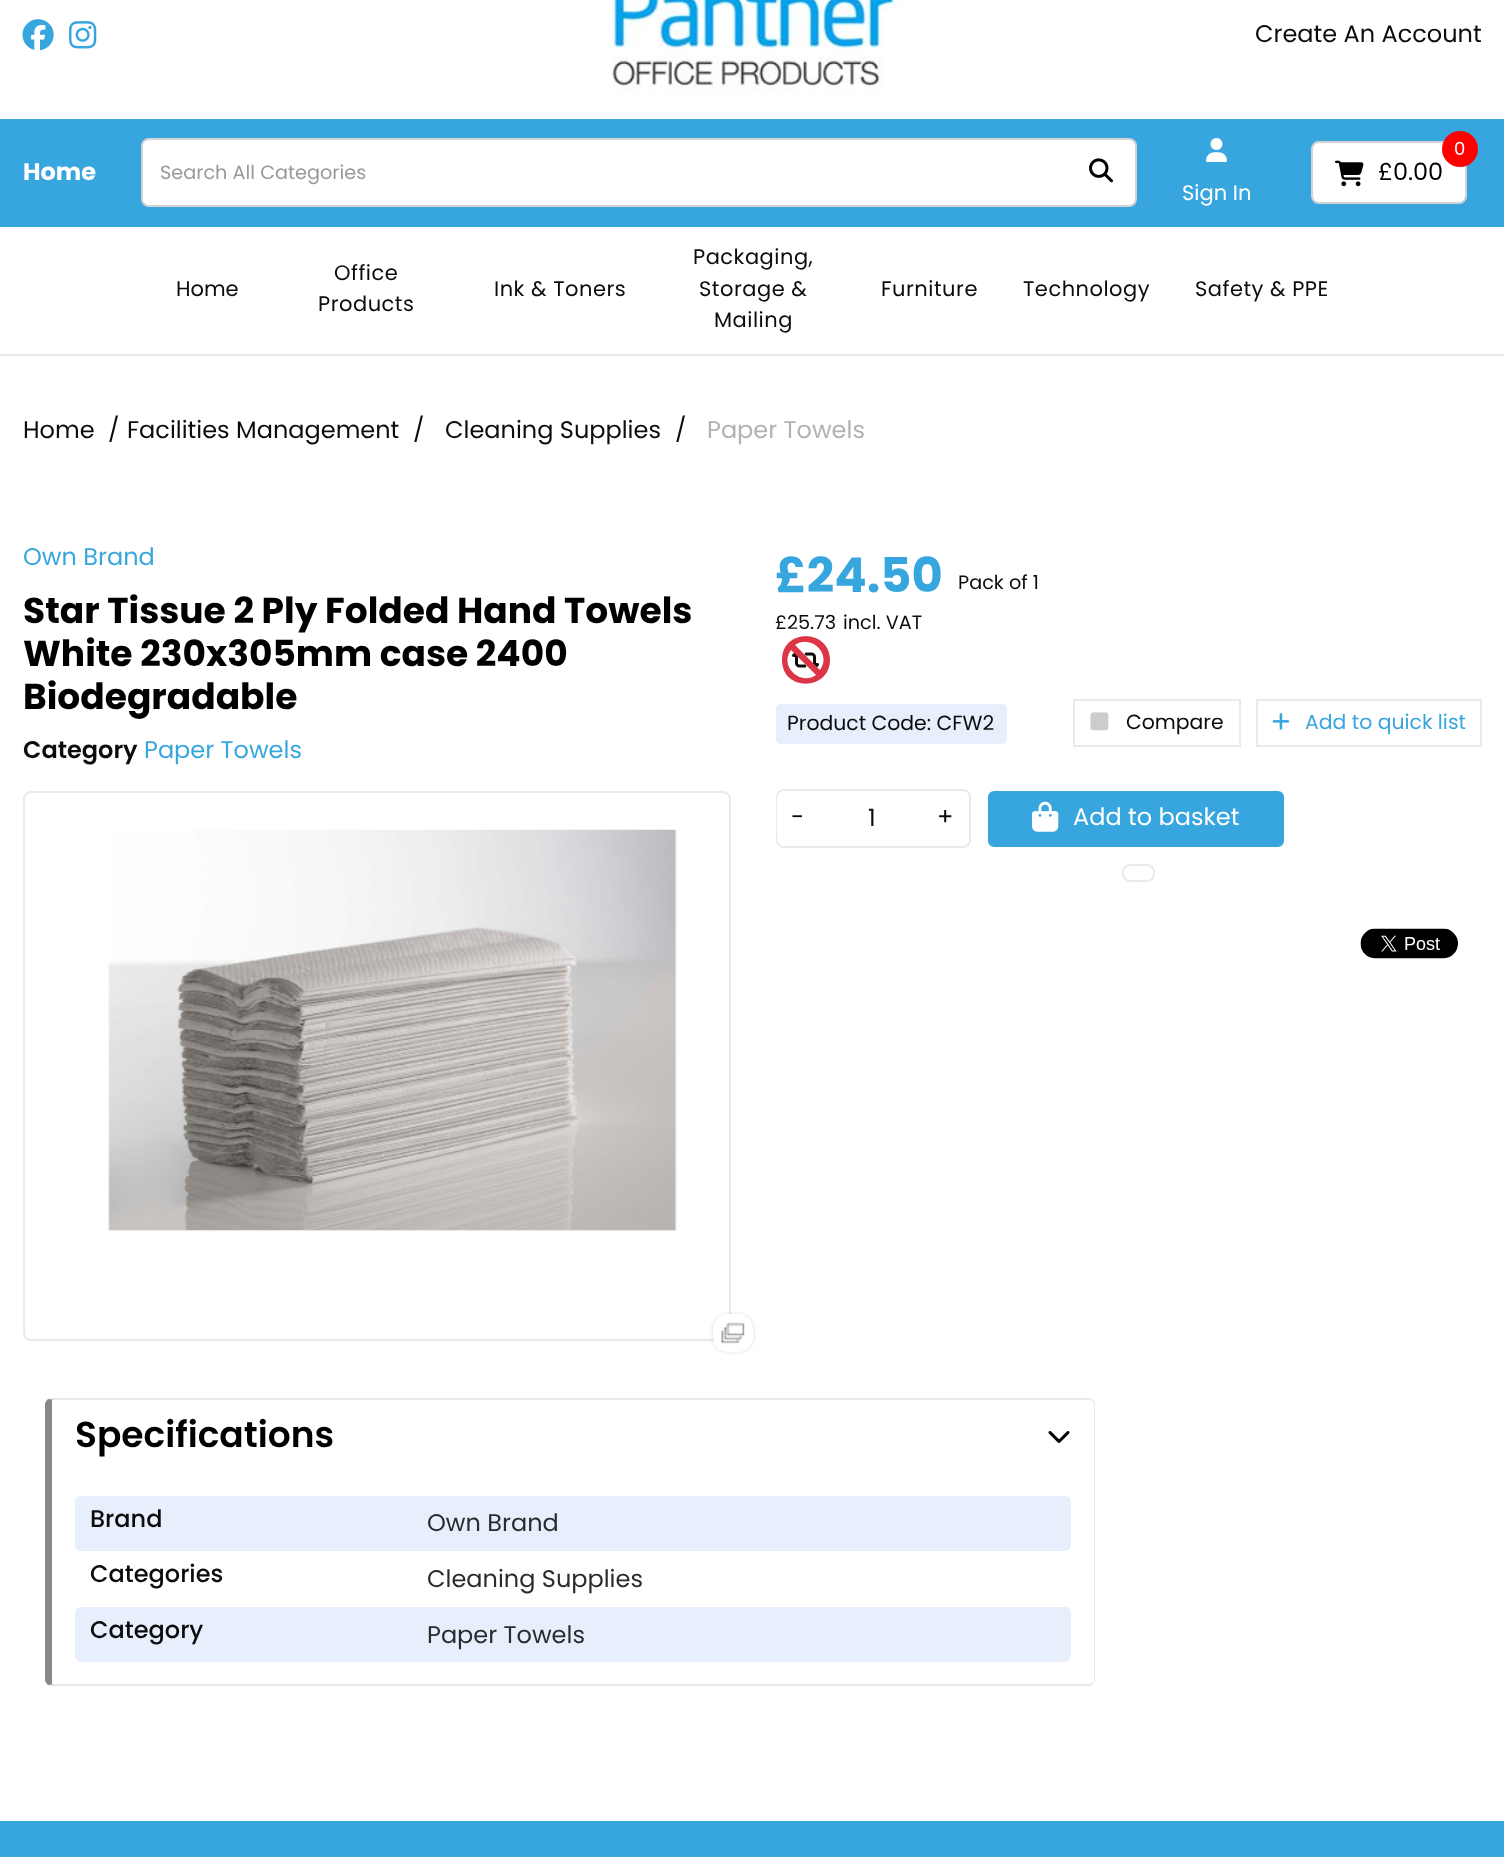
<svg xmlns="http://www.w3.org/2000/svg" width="1504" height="1857">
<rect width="100%" height="100%" fill="#fff"/>
<image x="22" y="19" width="32" height="32" href="media/1.png"/>
<image x="69" y="21" width="28" height="28" href="media/2.png"/>
<image x="606" y="0" width="296" height="93" href="media/3.png"/>
<text x="1255" y="42" style="font-family:Poppins;font-size:24px;fill:#0c0c0d">Create An Account</text>
<rect y="119" width="1504" height="108" fill="#38a6de"/>
<text x="23" y="180" style="font-family:Poppins;font-size:24px;font-weight:bold;fill:#fff">Home</text>
<rect x="142" y="139" width="994" height="67" rx="7" fill="#fff" stroke="#d3d3d3" stroke-width="2"/>
<text x="160" y="179" style="font-family:Poppins;font-size:19.25px;fill:#999">Search All Categories</text>
<image x="1089" y="158" width="24" height="25" href="media/4.png"/>
<rect x="1312" y="142" width="154" height="61" rx="7" fill="#fff" stroke="#d3d3d3" stroke-width="2"/>
<circle cx="1460" cy="149" r="18" fill="#f00"/>
<text x="1454" y="155" style="font-family:Poppins;font-size:18px;fill:#fff">0</text>
<image x="1335" y="160" width="29" height="27" href="media/5.png"/>
<text x="1378" y="180" style="font-family:Poppins;font-size:24px;fill:#000">£0.00</text>
<image x="1206" y="138" width="21" height="24" href="media/6.png"/>
<text x="1182" y="200" style="font-family:Poppins;font-size:21px;fill:#fff">Sign In</text>
<rect y="354" width="1504" height="2" fill="#eaeaea"/>
<text x="176" y="296" style="font-family:Poppins;font-size:21px;fill:#0c0c0d">Home</text>
<text x="334" y="280" style="font-family:Poppins;font-size:21px;letter-spacing:0.5px;fill:#0c0c0d">Office</text>
<text x="318" y="311" style="font-family:Poppins;font-size:21px;letter-spacing:0.5px;fill:#0c0c0d">Products</text>
<text x="494" y="296" style="font-family:Poppins;font-size:21px;letter-spacing:0.5px;fill:#0c0c0d">Ink &amp; Toners</text>
<text x="693" y="264" style="font-family:Poppins;font-size:21px;letter-spacing:0.5px;fill:#0c0c0d">Packaging,</text>
<text x="699" y="296" style="font-family:Poppins;font-size:21px;letter-spacing:0.5px;fill:#0c0c0d">Storage &amp;</text>
<text x="714" y="327" style="font-family:Poppins;font-size:21px;letter-spacing:0.5px;fill:#0c0c0d">Mailing</text>
<text x="881" y="296" style="font-family:Poppins;font-size:21px;letter-spacing:0.5px;fill:#0c0c0d">Furniture</text>
<text x="1023" y="296" style="font-family:Poppins;font-size:21px;letter-spacing:0.5px;fill:#0c0c0d">Technology</text>
<text x="1195" y="296" style="font-family:Poppins;font-size:21px;letter-spacing:0.5px;fill:#0c0c0d">Safety &amp; PPE</text>
<text x="23" y="438" style="font-family:Poppins;font-size:24px;fill:#0c0c0d">Home</text>
<text x="108" y="438" style="font-family:Poppins;font-size:24px;fill:#0c0c0d">/</text>
<text x="127" y="438" style="font-family:Poppins;font-size:24px;fill:#0c0c0d">Facilities Management</text>
<text x="413" y="438" style="font-family:Poppins;font-size:24px;fill:#0c0c0d">/</text>
<text x="445" y="438" style="font-family:Poppins;font-size:24px;fill:#0c0c0d">Cleaning Supplies</text>
<text x="675" y="438" style="font-family:Poppins;font-size:24px;fill:#0c0c0d">/</text>
<text x="707" y="438" style="font-family:Poppins;font-size:24px;fill:#b2b2b2">Paper Towels</text>
<text x="23" y="565" style="font-family:Poppins;font-size:24px;fill:#38a6de">Own Brand</text>
<text x="23" y="623" style="font-family:Poppins;font-size:36px;font-weight:bold;fill:#000">Star Tissue 2 Ply Folded Hand Towels</text>
<text x="23" y="666" style="font-family:Poppins;font-size:36px;font-weight:bold;fill:#000">White 230x305mm case 2400</text>
<text x="23" y="709" style="font-family:Poppins;font-size:36px;font-weight:bold;fill:#000">Biodegradable</text>
<text x="23" y="758" style="font-family:Poppins;font-size:24px;font-weight:600;fill:#0c0c0d">Category</text>
<text x="144" y="758" style="font-family:Poppins;font-size:24px;fill:#38a6de">Paper Towels</text>
<rect x="24" y="792" width="706" height="548" rx="7" fill="none" stroke="#eaeaea" stroke-width="2"/>
<image x="108" y="829" width="569" height="402" href="media/7.png"/>
<rect x="711" y="1313" width="44" height="40" rx="17" fill="#00000012" filter="blur(1.5px)"/>
<rect x="713" y="1314" width="40" height="38" rx="15" fill="#fff"/>
<image x="717" y="1317" width="28" height="27" href="media/8.png"/>
<text x="775" y="592" style="font-family:Poppins;font-size:48px;font-weight:bold;fill:#38a6de">£24.50</text>
<text x="958" y="589" style="font-family:Poppins;font-size:19.25px;fill:#0c0c0d">Pack of 1</text>
<text x="775" y="629" style="font-family:Poppins;font-size:19.25px;fill:#0c0c0d">£25.73</text>
<text x="843" y="629" style="font-family:Poppins;font-size:19.25px;fill:#0c0c0d">incl. VAT</text>
<image x="792" y="652" width="27" height="16" href="media/9.png"/>
<path d="M816 675l-25-25c-12 16 9 36 25 25zm4-5c12-16-9-36-25-25zm-38-10c0-32 48-31 48 0c0 31-48 32-48 0z" fill="#dc3545"/>
<rect x="776" y="704" width="231" height="40" rx="5" fill="#e6effb"/>
<text x="787" y="730" style="font-family:Poppins;font-size:20.4px;fill:#0c0c0d">Product Code: CFW2</text>
<rect x="1074" y="700" width="166" height="46" fill="none" stroke="#eaeaea" stroke-width="2"/>
<image x="1090" y="712" width="19" height="19" href="media/10.png"/>
<text x="1126" y="729" style="font-family:Poppins;font-size:20.4px;fill:#0c0c0d">Compare</text>
<rect x="1257" y="700" width="224" height="46" fill="none" stroke="#eaeaea" stroke-width="2"/>
<image x="1272" y="713" width="18" height="17" href="media/11.png"/>
<text x="1305" y="729" style="font-family:Poppins;font-size:20.4px;fill:#38a6de">Add to quick list</text>
<rect x="777" y="790" width="193" height="57" rx="7" fill="none" stroke="#eaeaea" stroke-width="2"/>
<rect x="777" y="791" width="192" height="55" rx="8" fill="#fff"/>
<text x="791" y="825" style="font-family:Poppins;font-size:24px;fill:#0c0c0d">-</text>
<text x="868" y="826" style="font-family:Poppins;font-size:24px;fill:#0c0c0d">1</text>
<text x="937" y="825" style="font-family:Poppins;font-size:24px;fill:#0c0c0d">+</text>
<rect x="987" y="790" width="298" height="58" rx="7" fill="#38a6de" stroke="#fff" stroke-width="2"/>
<image x="1032" y="801" width="27" height="31" href="media/12.png"/>
<text x="1073" y="825" style="font-family:Poppins;font-size:24px;fill:#fff">Add to basket</text>
<rect x="1123" y="865" width="31" height="16" rx="7" fill="none" stroke="#eaeaea" stroke-width="2"/>
<image x="1360" y="928" width="98" height="31" href="media/13.png"/>
<path d="M51 1398l-3 1l7 1h1034l3 1l1-1c-1-1-3-2-4-2z" fill="#eaeaea"/>
<path d="M1095 1680v-276c0-2-1-3-2-4l-1 1l2 2v277c0 1-1 2-2 3l1 1c1-1 2-2 2-4z" fill="#eaeaea"/>
<path d="M51 1686h1038c1 0 3-1 4-2l-1-1l-3 1h-1034l-7 1z" fill="#eaeaea"/>
<path d="M52 1400h3l-7-1c-1 1-3 3-3 5v276c0 2 2 4 3 5l7-1h-3z" fill="#878787"/>
<text x="75" y="1447" style="font-family:Poppins;font-size:36px;font-weight:600;fill:#000">Specifications</text>
<image x="1048" y="1431" width="22" height="12" href="media/14.png"/>
<rect x="75" y="1496" width="996" height="55" rx="6" fill="#e6effb"/>
<text x="90" y="1527" style="font-family:Poppins;font-size:24px;font-weight:500;fill:#0c0c0d">Brand</text>
<text x="427" y="1531" style="font-family:Poppins;font-size:24px;fill:#292c2e">Own Brand</text>
<text x="90" y="1582" style="font-family:Poppins;font-size:24px;font-weight:500;fill:#0c0c0d">Categories</text>
<text x="427" y="1587" style="font-family:Poppins;font-size:24px;fill:#292c2e">Cleaning Supplies</text>
<rect x="75" y="1607" width="996" height="55" rx="6" fill="#e6effb"/>
<text x="90" y="1638" style="font-family:Poppins;font-size:24px;font-weight:500;fill:#0c0c0d">Category</text>
<text x="427" y="1643" style="font-family:Poppins;font-size:24px;fill:#292c2e">Paper Towels</text>
<rect y="1821" width="1504" height="36" fill="#38a6de"/>
</svg>
